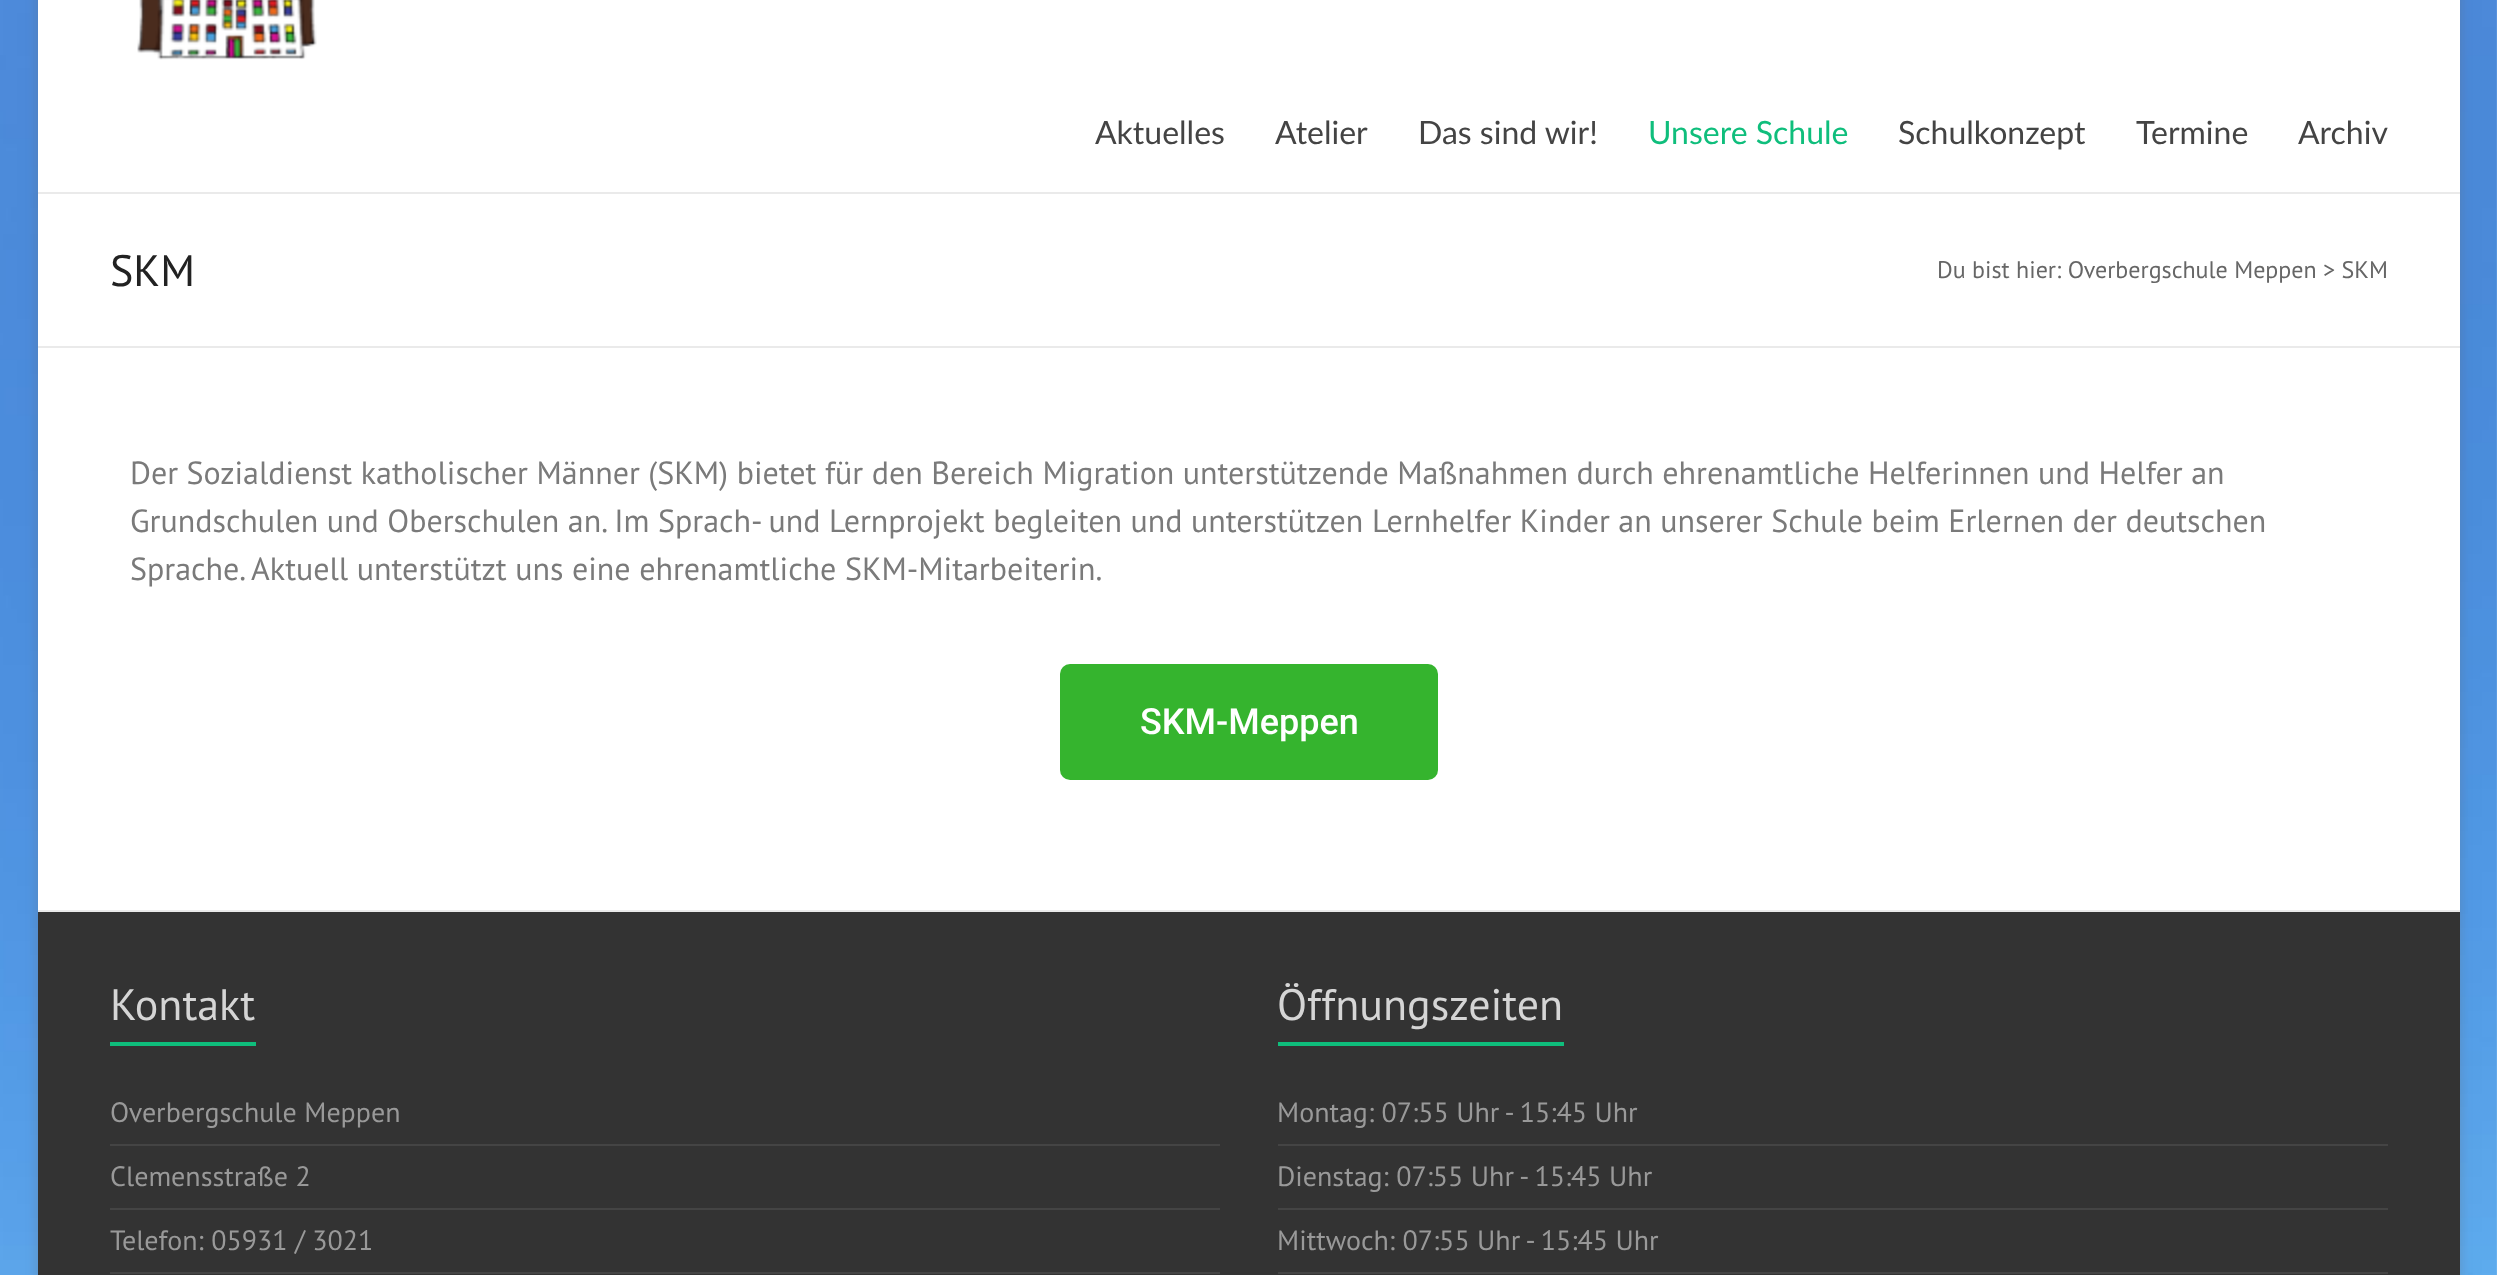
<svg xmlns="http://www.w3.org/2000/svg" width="2497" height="1275">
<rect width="100%" height="100%" fill="#fff"/>
<image x="0" y="0" width="2497" height="1275" href="media/1.png"/>
<rect x="38" y="-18" width="2422" height="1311" fill="#6464644d" filter="blur(6px)"/>
<rect x="38" width="2422" height="910" fill="#fff"/>
<rect x="38" y="192" width="2422" height="2" fill="#eaeaea"/>
<image x="137" y="0" width="180" height="60" href="media/2.png"/>
<text x="1095" y="144" style="font-family:Lato;font-size:32px;fill:#444">Aktuelles</text>
<text x="1275" y="144" style="font-family:Lato;font-size:32px;fill:#444">Atelier</text>
<text x="1418" y="144" style="font-family:Lato;font-size:32px;fill:#444">Das sind wir!</text>
<text x="1648" y="144" style="font-family:Lato;font-size:32px;fill:#0fbe7c">Unsere Schule</text>
<text x="1898" y="144" style="font-family:Lato;font-size:32px;fill:#444">Schulkonzept</text>
<text x="2136" y="144" style="font-family:Lato;font-size:32px;fill:#444">Termine</text>
<text x="2298" y="144" style="font-family:Lato;font-size:32px;fill:#444">Archiv</text>
<rect x="38" y="346" width="2422" height="2" fill="#eaeaea"/>
<text x="110" y="286" style="font-family:PT Sans;font-size:44px;fill:#222">SKM</text>
<text x="1937" y="278" style="font-family:PT Sans;font-size:24px;fill:#666">Du bist hier: Overbergschule Meppen &gt; SKM</text>
<text x="130" y="484" style="font-family:PT Sans;font-size:32px;fill:#7a7a7a">Der Sozialdienst katholischer Männer (SKM) bietet für den Bereich Migration unterstützende Maßnahmen durch ehrenamtliche Helferinnen und Helfer an</text>
<text x="130" y="532" style="font-family:PT Sans;font-size:32px;fill:#7a7a7a">Grundschulen und Oberschulen an. Im Sprach- und Lernprojekt begleiten und unterstützen Lernhelfer Kinder an unserer Schule beim Erlernen der deutschen</text>
<text x="130" y="580" style="font-family:PT Sans;font-size:32px;fill:#7a7a7a">Sprache. Aktuell unterstützt uns eine ehrenamtliche SKM-Mitarbeiterin.</text>
<rect x="1060" y="664" width="378" height="116" rx="10" fill="#35b42e"/>
<text x="1140" y="734" style="font-family:Roboto;font-size:36px;font-weight:500;fill:#fff">SKM-Meppen</text>
<rect x="38" y="912" width="2422" height="363" fill="#333"/>
<rect x="38" y="910" width="2422" height="2" fill="#eaeaea"/>
<text x="110" y="1020" style="font-family:PT Sans;font-size:44px;fill:#d5d5d5">Kontakt</text>
<rect x="110" y="1042" width="146" height="4" fill="#0fbe7c"/>
<rect x="110" y="1144" width="1110" height="2" fill="#444"/>
<text x="110" y="1122" style="font-family:PT Sans;font-size:28px;fill:#999">Overbergschule Meppen</text>
<rect x="110" y="1208" width="1110" height="2" fill="#444"/>
<text x="110" y="1186" style="font-family:PT Sans;font-size:28px;fill:#999">Clemensstraße 2</text>
<rect x="110" y="1272" width="1110" height="2" fill="#444"/>
<text x="110" y="1250" style="font-family:PT Sans;font-size:28px;fill:#999">Telefon: 05931 / 3021</text>
<text x="1277" y="1020" style="font-family:PT Sans;font-size:44px;fill:#d5d5d5">Öffnungszeiten</text>
<rect x="1278" y="1042" width="286" height="4" fill="#0fbe7c"/>
<rect x="1278" y="1144" width="1110" height="2" fill="#444"/>
<text x="1277" y="1122" style="font-family:PT Sans;font-size:28px;fill:#999">Montag: 07:55 Uhr - 15:45 Uhr</text>
<rect x="1278" y="1208" width="1110" height="2" fill="#444"/>
<text x="1277" y="1186" style="font-family:PT Sans;font-size:28px;fill:#999">Dienstag: 07:55 Uhr - 15:45 Uhr</text>
<rect x="1278" y="1272" width="1110" height="2" fill="#444"/>
<text x="1277" y="1250" style="font-family:PT Sans;font-size:28px;fill:#999">Mittwoch: 07:55 Uhr - 15:45 Uhr</text>
</svg>
